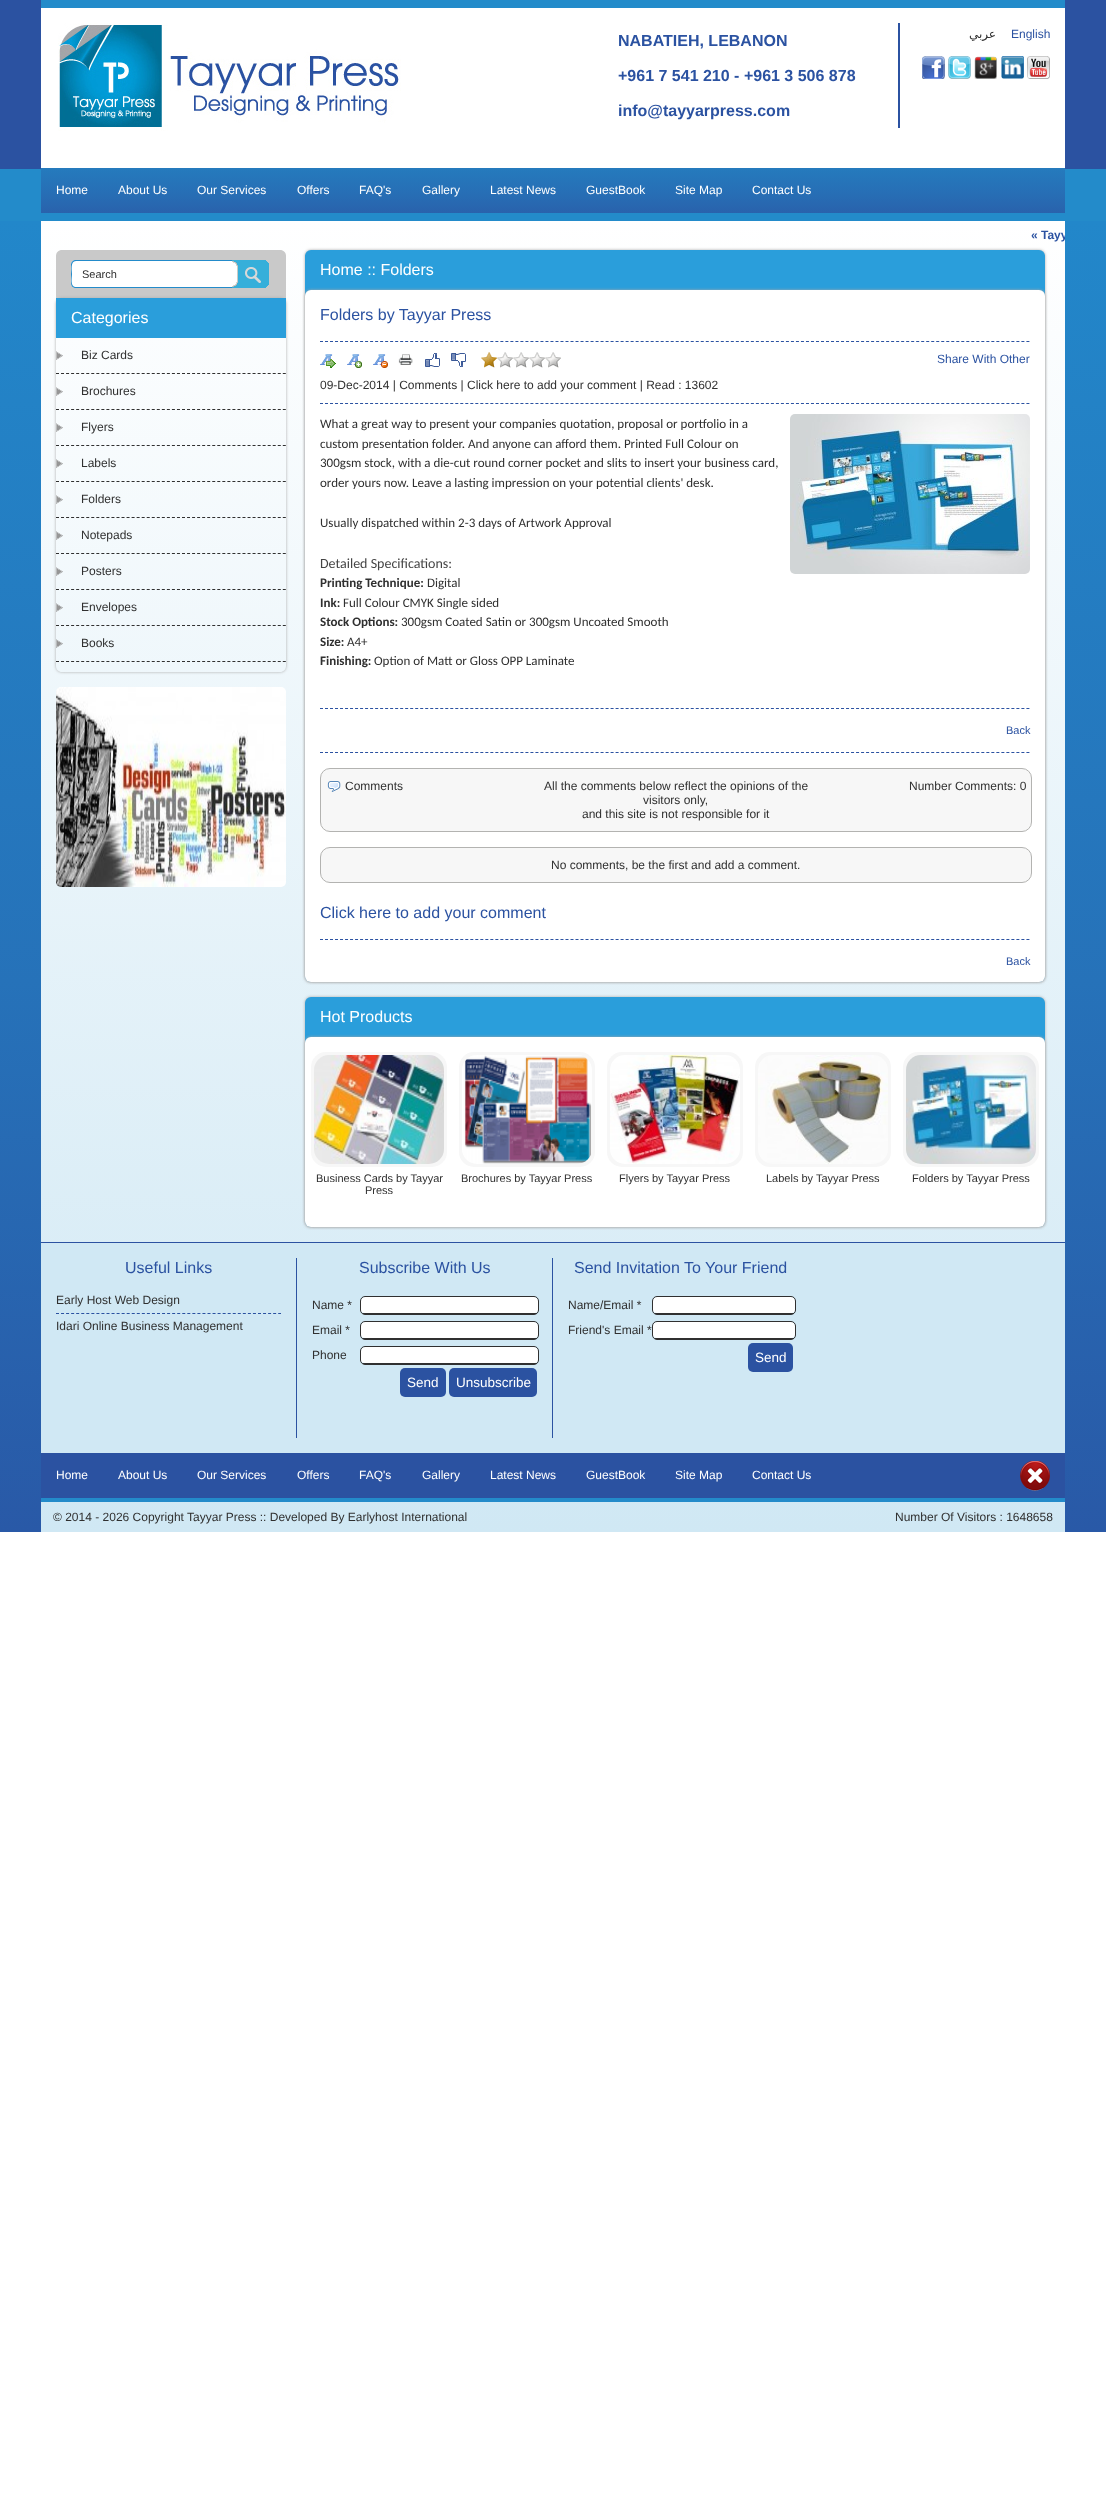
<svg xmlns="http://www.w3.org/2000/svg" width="1106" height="2510">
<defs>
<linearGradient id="g1" gradientUnits="userSpaceOnUse" x1="553" y1="168" x2="553" y2="213"><stop offset="0" stop-color="#257bbd"/><stop offset="0.58" stop-color="#276eb5"/><stop offset="1" stop-color="#2962ac"/></linearGradient>
<linearGradient id="g2" gradientUnits="userSpaceOnUse" x1="553" y1="221" x2="553" y2="1532"><stop offset="0" stop-color="#2287ca"/><stop offset="0.58" stop-color="#2672b9"/><stop offset="1" stop-color="#2959a7"/></linearGradient>
<linearGradient id="g3" gradientUnits="userSpaceOnUse" x1="553" y1="221" x2="553" y2="1532"><stop offset="0" stop-color="#fff"/><stop offset="1" stop-color="#d0e8f4"/></linearGradient>
<clipPath id="clip1"><rect x="41" y="221" width="1024" height="29"/></clipPath>
<clipPath id="clip2"><path d="M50 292h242v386h-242zm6 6h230v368c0 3.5-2.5 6-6 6h-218c-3.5 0-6-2.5-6-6z" clip-rule="evenodd"/></clipPath>
</defs>
<rect width="100%" height="100%" fill="#fff"/>
<rect width="1106" height="169" fill="#2b52a1"/>
<rect y="169" width="1106" height="52" fill="#238bca"/>
<rect x="41" y="8" width="1024" height="160" fill="#fff"/>
<rect x="41" width="1024" height="8" fill="#238bca"/>
<image x="58" y="23" width="343" height="108" href="media/1.png"/>
<rect x="898" y="23" width="2" height="105" fill="#2b52a1"/>
<text x="618" y="46" style="font-family:Liberation Sans;font-size:16px;font-weight:bold;fill:#2b52a1">NABATIEH, LEBANON</text>
<text x="618" y="81" style="font-family:Liberation Sans;font-size:16px;font-weight:bold;fill:#2b52a1">+961 7 541 210 - +961 3 506 878</text>
<text x="618" y="116" style="font-family:Liberation Sans;font-size:16px;font-weight:bold;fill:#2b52a1">info@tayyarpress.com</text>
<text x="996" y="38" style="font-family:DejaVu Sans;font-size:12px;direction:rtl;fill:#303030">عربي</text>
<text x="1011" y="38" style="font-family:Liberation Sans;font-size:12px;fill:#2b52a1">English</text>
<image x="922" y="56" width="23" height="23" href="media/2.png"/>
<image x="948" y="56" width="23" height="23" href="media/3.png"/>
<image x="974" y="56" width="23" height="23" href="media/4.png"/>
<image x="1001" y="56" width="23" height="23" href="media/5.png"/>
<image x="1027" y="56" width="23" height="23" href="media/6.png"/>
<rect x="41" y="168" width="1024" height="45" fill="url(#g1)"/>
<text x="56" y="194" style="font-family:Liberation Sans;font-size:12px;fill:#fff">Home</text>
<text x="118" y="194" style="font-family:Liberation Sans;font-size:12px;fill:#fff">About Us</text>
<text x="197" y="194" style="font-family:Liberation Sans;font-size:12px;fill:#fff">Our Services</text>
<text x="297" y="194" style="font-family:Liberation Sans;font-size:12px;fill:#fff">Offers</text>
<text x="359" y="194" style="font-family:Liberation Sans;font-size:12px;fill:#fff">FAQ's</text>
<text x="422" y="194" style="font-family:Liberation Sans;font-size:12px;fill:#fff">Gallery</text>
<text x="490" y="194" style="font-family:Liberation Sans;font-size:12px;fill:#fff">Latest News</text>
<text x="586" y="194" style="font-family:Liberation Sans;font-size:12px;fill:#fff">GuestBook</text>
<text x="675" y="194" style="font-family:Liberation Sans;font-size:12px;fill:#fff">Site Map</text>
<text x="752" y="194" style="font-family:Liberation Sans;font-size:12px;fill:#fff">Contact Us</text>
<rect y="221" width="1106" height="1311" fill="url(#g2)"/>
<rect x="41" y="221" width="1024" height="1311" fill="url(#g3)"/>
<g clip-path="url(#clip1)">
<text x="1031" y="239" style="font-family:Liberation Sans;font-size:12px;font-weight:bold;fill:#2b52a1">« Tayy</text>
</g>
<path d="M62 250h218c3.5 0 6 2.5 6 6v42h-230v-42c0-3.5 2.5-6 6-6z" fill="#c9c9c9"/>
<path d="M76 260h156v28h-156c-3 0-5-2-5-5v-18c0-3 2-5 5-5z" fill="#fff"/>
<path d="M76 260h156v28h-156c-3 0-5-2-5-5v-18c0-3 2-5 5-5zm0 1h156v26h-157c-5-1-3-10-3-13c0-3-2-13 4-13z" fill="#238bca" fill-rule="evenodd"/>
<text x="82" y="278" style="font-family:Liberation Sans;font-size:11px;fill:#303030">Search</text>
<image x="232" y="260" width="37" height="28" href="media/7.png"/>
<g clip-path="url(#clip2)">
<rect x="56" y="298" width="230" height="374" rx="6" fill="#a9a9a9" filter="blur(1.5px)"/>
</g>
<rect x="56" y="298" width="230" height="40" fill="#2a9edb"/>
<text x="71" y="323" style="font-family:Liberation Sans;font-size:16px;fill:#fff">Categories</text>
<image x="56" y="351" width="7" height="9" href="media/8.png"/>
<path d="M56 373.5h230" fill="none" stroke="#303030" stroke-dasharray="3 2.04"/>
<text x="81" y="359" style="font-family:Liberation Sans;font-size:12px;fill:#303030">Biz Cards</text>
<image x="56" y="387" width="7" height="9" href="media/9.png"/>
<path d="M56 409.5h230" fill="none" stroke="#303030" stroke-dasharray="3 2.04"/>
<text x="81" y="395" style="font-family:Liberation Sans;font-size:12px;fill:#303030">Brochures</text>
<image x="56" y="423" width="7" height="9" href="media/10.png"/>
<path d="M56 445.5h230" fill="none" stroke="#303030" stroke-dasharray="3 2.04"/>
<text x="81" y="431" style="font-family:Liberation Sans;font-size:12px;fill:#303030">Flyers</text>
<image x="56" y="459" width="7" height="9" href="media/11.png"/>
<path d="M56 481.5h230" fill="none" stroke="#303030" stroke-dasharray="3 2.04"/>
<text x="81" y="467" style="font-family:Liberation Sans;font-size:12px;fill:#303030">Labels</text>
<image x="56" y="495" width="7" height="9" href="media/12.png"/>
<path d="M56 517.5h230" fill="none" stroke="#303030" stroke-dasharray="3 2.04"/>
<text x="81" y="503" style="font-family:Liberation Sans;font-size:12px;fill:#303030">Folders</text>
<image x="56" y="531" width="7" height="9" href="media/13.png"/>
<path d="M56 553.5h230" fill="none" stroke="#303030" stroke-dasharray="3 2.04"/>
<text x="81" y="539" style="font-family:Liberation Sans;font-size:12px;fill:#303030">Notepads</text>
<image x="56" y="567" width="7" height="9" href="media/14.png"/>
<path d="M56 589.5h230" fill="none" stroke="#303030" stroke-dasharray="3 2.04"/>
<text x="81" y="575" style="font-family:Liberation Sans;font-size:12px;fill:#303030">Posters</text>
<image x="56" y="603" width="7" height="9" href="media/15.png"/>
<path d="M56 625.5h230" fill="none" stroke="#303030" stroke-dasharray="3 2.04"/>
<text x="81" y="611" style="font-family:Liberation Sans;font-size:12px;fill:#303030">Envelopes</text>
<image x="56" y="639" width="7" height="9" href="media/16.png"/>
<path d="M56 661.5h230" fill="none" stroke="#303030" stroke-dasharray="3 2.04"/>
<text x="81" y="647" style="font-family:Liberation Sans;font-size:12px;fill:#303030">Books</text>
<image x="56" y="687" width="230" height="200" href="media/17.png"/>
<rect x="305" y="250" width="740" height="732" rx="6" fill="#a9a9a9" filter="blur(1.5px)"/>
<rect x="305" y="250" width="740" height="732" rx="6" fill="#2a9edb"/>
<text x="320" y="275" style="font-family:Liberation Sans;font-size:16px;fill:#fff">Home :: Folders</text>
<rect x="305" y="290" width="740" height="692" rx="6" fill="#a9a9a9" filter="blur(1.5px)"/>
<rect x="305" y="290" width="740" height="692" rx="6" fill="#fff"/>
<text x="320" y="320" style="font-family:Liberation Sans;font-size:16px;fill:#2b52a1">Folders by Tayyar Press</text>
<path d="M320 341.5h710" fill="none" stroke="#2b52a1" stroke-dasharray="3 2.01"/>
<image x="320" y="354" width="16" height="14" href="media/18.png"/>
<image x="347" y="354" width="15" height="14" href="media/19.png"/>
<image x="373" y="354" width="15" height="14" href="media/20.png"/>
<image x="398" y="354" width="15" height="11" href="media/21.png"/>
<image x="425" y="353" width="15" height="14" href="media/22.png"/>
<image x="451" y="353" width="15" height="14" href="media/23.png"/>
<image x="481" y="352" width="80" height="16" href="media/24.png"/>
<text x="937" y="363" style="font-family:Liberation Sans;font-size:12px;fill:#2b52a1">Share With Other</text>
<text x="320" y="389" style="font-family:Liberation Sans;font-size:12px;fill:#303030">09-Dec-2014 | Comments | Click here to add your comment | Read : 13602</text>
<path d="M320 403.5h710" fill="none" stroke="#2b52a1" stroke-dasharray="3 2.01"/>
<text x="320" y="428" style="font-family:Carlito;font-size:13px;fill:#303030">What a great way to present your companies quotation, proposal or portfolio in a</text>
<text x="320" y="448" style="font-family:Carlito;font-size:13px;fill:#303030">custom presentation folder. And anyone can afford them. Printed Full Colour on</text>
<text x="320" y="467" style="font-family:Carlito;font-size:13px;fill:#303030">300gsm stock, with a die-cut round corner pocket and slits to insert your business card,</text>
<text x="320" y="487" style="font-family:Carlito;font-size:13px;fill:#303030">order yours now. Leave a lasting impression on your potential clients' desk.</text>
<text x="320" y="527" style="font-family:Carlito;font-size:13px;fill:#303030">Usually dispatched within 2-3 days of Artwork Approval</text>
<text x="320" y="568" style="font-family:Carlito;font-size:14px;fill:#444">Detailed Specifications:</text>
<text x="320" y="587" style="font-family:Carlito;font-size:13px;font-weight:bold;fill:#303030">Printing Technique:</text>
<text x="427" y="587" style="font-family:Carlito;font-size:13px;fill:#303030">Digital</text>
<text x="320" y="607" style="font-family:Carlito;font-size:13px;font-weight:bold;fill:#303030">Ink:</text>
<text x="343" y="607" style="font-family:Carlito;font-size:13px;fill:#303030">Full Colour CMYK Single sided</text>
<text x="320" y="626" style="font-family:Carlito;font-size:13px;font-weight:bold;fill:#303030">Stock Options:</text>
<text x="401" y="626" style="font-family:Carlito;font-size:13px;fill:#303030">300gsm Coated Satin or 300gsm Uncoated Smooth</text>
<text x="320" y="646" style="font-family:Carlito;font-size:13px;font-weight:bold;fill:#303030">Size:</text>
<text x="347" y="646" style="font-family:Carlito;font-size:13px;fill:#303030">A4+</text>
<text x="320" y="665" style="font-family:Carlito;font-size:13px;font-weight:bold;fill:#303030">Finishing:</text>
<text x="374" y="665" style="font-family:Carlito;font-size:13px;fill:#303030">Option of Matt or Gloss OPP Laminate</text>
<image x="790" y="414" width="240" height="160" href="media/25.png"/>
<path d="M320 708.5h710" fill="none" stroke="#2b52a1" stroke-dasharray="3 2.01"/>
<text x="1006" y="734" style="font-family:Liberation Sans;font-size:11px;fill:#2b52a1">Back</text>
<path d="M320 752.5h710" fill="none" stroke="#2b52a1" stroke-dasharray="3 2.01"/>
<rect x="320.5" y="768.5" width="711" height="63" rx="9.5" fill="#f7f7f7" stroke="#b3b3b1"/>
<image x="327" y="781" width="14" height="11" href="media/26.png"/>
<text x="345" y="790" style="font-family:Liberation Sans;font-size:12px;fill:#303030">Comments</text>
<text x="544" y="790" style="font-family:Liberation Sans;font-size:12px;fill:#303030">All the comments below reflect the opinions of the</text>
<text x="643" y="804" style="font-family:Liberation Sans;font-size:12px;fill:#303030">visitors only,</text>
<text x="582" y="818" style="font-family:Liberation Sans;font-size:12px;fill:#303030">and this site is not responsible for it</text>
<text x="909" y="790" style="font-family:Liberation Sans;font-size:12px;fill:#303030">Number Comments: 0</text>
<rect x="320.5" y="847.5" width="711" height="35" rx="9.5" fill="#f7f7f7" stroke="#b3b3b1"/>
<text x="551" y="869" style="font-family:Liberation Sans;font-size:12px;fill:#303030">No comments, be the first and add a comment.</text>
<text x="320" y="918" style="font-family:Liberation Sans;font-size:16px;fill:#2b52a1">Click here to add your comment</text>
<path d="M320 939.5h710" fill="none" stroke="#2b52a1" stroke-dasharray="3 2.01"/>
<text x="1006" y="965" style="font-family:Liberation Sans;font-size:11px;fill:#2b52a1">Back</text>
<rect x="305" y="997" width="740" height="230" rx="6" fill="#a9a9a9" filter="blur(1.5px)"/>
<rect x="305" y="997" width="740" height="230" rx="6" fill="#2a9edb"/>
<text x="320" y="1022" style="font-family:Liberation Sans;font-size:16px;fill:#fff">Hot Products</text>
<rect x="305" y="1037" width="740" height="190" rx="6" fill="#a9a9a9" filter="blur(1.5px)"/>
<rect x="305" y="1037" width="740" height="190" rx="6" fill="#fff"/>
<rect x="311" y="1052" width="136" height="115" rx="15" fill="#f7f7f7"/>
<image x="314" y="1055" width="130" height="109" href="media/27.png"/>
<text x="316" y="1182" style="font-family:Liberation Sans;font-size:11px;fill:#303030">Business Cards by Tayyar</text>
<text x="365" y="1194" style="font-family:Liberation Sans;font-size:11px;fill:#303030">Press</text>
<rect x="459" y="1052" width="136" height="115" rx="15" fill="#f7f7f7"/>
<image x="462" y="1055" width="130" height="109" href="media/28.png"/>
<text x="461" y="1182" style="font-family:Liberation Sans;font-size:11px;fill:#303030">Brochures by Tayyar Press</text>
<rect x="607" y="1052" width="136" height="115" rx="15" fill="#f7f7f7"/>
<image x="610" y="1055" width="130" height="109" href="media/29.png"/>
<text x="619" y="1182" style="font-family:Liberation Sans;font-size:11px;fill:#303030">Flyers by Tayyar Press</text>
<rect x="755" y="1052" width="136" height="115" rx="15" fill="#f7f7f7"/>
<image x="758" y="1055" width="130" height="109" href="media/30.png"/>
<text x="766" y="1182" style="font-family:Liberation Sans;font-size:11px;fill:#303030">Labels by Tayyar Press</text>
<rect x="903" y="1052" width="136" height="115" rx="15" fill="#f7f7f7"/>
<image x="906" y="1055" width="130" height="109" href="media/31.png"/>
<text x="912" y="1182" style="font-family:Liberation Sans;font-size:11px;fill:#303030">Folders by Tayyar Press</text>
<rect x="41" y="1243" width="1024" height="210" fill="#d0e8f4"/>
<rect x="41" y="1242" width="1024" height="1" fill="#2b52a1"/>
<rect x="296" y="1258" width="1" height="180" fill="#2b52a1"/>
<text x="125" y="1273" style="font-family:Liberation Sans;font-size:16px;fill:#2b52a1">Useful Links</text>
<text x="56" y="1304" style="font-family:Liberation Sans;font-size:12px;fill:#303030">Early Host Web Design</text>
<path d="M56 1313.5h225" fill="none" stroke="#2b52a1" stroke-dasharray="3 2.05"/>
<text x="56" y="1330" style="font-family:Liberation Sans;font-size:12px;fill:#303030">Idari Online Business Management</text>
<rect x="552" y="1258" width="1" height="180" fill="#2b52a1"/>
<text x="359" y="1273" style="font-family:Liberation Sans;font-size:16px;fill:#2b52a1">Subscribe With Us</text>
<text x="312" y="1309" style="font-family:Liberation Sans;font-size:12px;fill:#303030">Name *</text>
<path d="M365 1297h169c2 0 4 2 4 4v9c0 2-2 3-4 3h-169c-2 0-4-1-4-3v-9c0-2 2-4 4-4z" fill="#fff"/>
<rect x="360.5" y="1296.5" width="178" height="18" rx="4.5" fill="none" stroke="#303030"/>
<rect x="363" y="1313" width="174" height="1" fill="#303030"/>
<text x="312" y="1334" style="font-family:Liberation Sans;font-size:12px;fill:#303030">Email *</text>
<path d="M365 1322h169c2 0 4 2 4 4v9c0 2-2 3-4 3h-169c-2 0-4-1-4-3v-9c0-2 2-4 4-4z" fill="#fff"/>
<rect x="360.5" y="1321.5" width="178" height="18" rx="4.5" fill="none" stroke="#303030"/>
<rect x="363" y="1338" width="174" height="1" fill="#303030"/>
<text x="312" y="1359" style="font-family:Liberation Sans;font-size:12px;fill:#303030">Phone</text>
<path d="M365 1347h169c2 0 4 2 4 4v9c0 2-2 3-4 3h-169c-2 0-4-1-4-3v-9c0-2 2-4 4-4z" fill="#fff"/>
<rect x="360.5" y="1346.5" width="178" height="18" rx="4.5" fill="none" stroke="#303030"/>
<rect x="363" y="1363" width="174" height="1" fill="#303030"/>
<rect x="400" y="1368" width="46" height="29" rx="5" fill="#2b52a1"/>
<text x="407" y="1387" style="font-family:Liberation Sans;font-size:13.5px;fill:#fff">Send</text>
<rect x="449" y="1368" width="88" height="29" rx="5" fill="#2b52a1"/>
<text x="456" y="1387" style="font-family:Liberation Sans;font-size:13.5px;fill:#fff">Unsubscribe</text>
<text x="574" y="1273" style="font-family:Liberation Sans;font-size:16px;fill:#2b52a1">Send Invitation To Your Friend</text>
<text x="568" y="1309" style="font-family:Liberation Sans;font-size:12px;fill:#303030">Name/Email *</text>
<path d="M657 1297h134c2 0 4 2 4 4v9c0 2-2 3-4 3h-134c-2 0-4-1-4-3v-9c0-2 2-4 4-4z" fill="#fff"/>
<rect x="652.5" y="1296.5" width="143" height="18" rx="4.5" fill="none" stroke="#303030"/>
<rect x="655" y="1313" width="139" height="1" fill="#303030"/>
<text x="568" y="1334" style="font-family:Liberation Sans;font-size:12px;fill:#303030">Friend's Email *</text>
<path d="M657 1322h134c2 0 4 2 4 4v9c0 2-2 3-4 3h-134c-2 0-4-1-4-3v-9c0-2 2-4 4-4z" fill="#fff"/>
<rect x="652.5" y="1321.5" width="143" height="18" rx="4.5" fill="none" stroke="#303030"/>
<rect x="655" y="1338" width="139" height="1" fill="#303030"/>
<rect x="748" y="1343" width="45" height="29" rx="5" fill="#2b52a1"/>
<text x="755" y="1362" style="font-family:Liberation Sans;font-size:13.5px;fill:#fff">Send</text>
<rect x="41" y="1453" width="1024" height="45" fill="#2b52a1"/>
<rect x="41" y="1498" width="1024" height="4" fill="#238bca"/>
<text x="56" y="1479" style="font-family:Liberation Sans;font-size:12px;fill:#fff">Home</text>
<text x="118" y="1479" style="font-family:Liberation Sans;font-size:12px;fill:#fff">About Us</text>
<text x="197" y="1479" style="font-family:Liberation Sans;font-size:12px;fill:#fff">Our Services</text>
<text x="297" y="1479" style="font-family:Liberation Sans;font-size:12px;fill:#fff">Offers</text>
<text x="359" y="1479" style="font-family:Liberation Sans;font-size:12px;fill:#fff">FAQ's</text>
<text x="422" y="1479" style="font-family:Liberation Sans;font-size:12px;fill:#fff">Gallery</text>
<text x="490" y="1479" style="font-family:Liberation Sans;font-size:12px;fill:#fff">Latest News</text>
<text x="586" y="1479" style="font-family:Liberation Sans;font-size:12px;fill:#fff">GuestBook</text>
<text x="675" y="1479" style="font-family:Liberation Sans;font-size:12px;fill:#fff">Site Map</text>
<text x="752" y="1479" style="font-family:Liberation Sans;font-size:12px;fill:#fff">Contact Us</text>
<image x="1020" y="1461" width="30" height="30" href="media/32.png"/>
<text x="53" y="1521" style="font-family:Liberation Sans;font-size:12px;fill:#303030">© 2014 - 2026 Copyright Tayyar Press :: Developed By Earlyhost International</text>
<text x="895" y="1521" style="font-family:Liberation Sans;font-size:12px;fill:#303030">Number Of Visitors : 1648658</text>
</svg>
